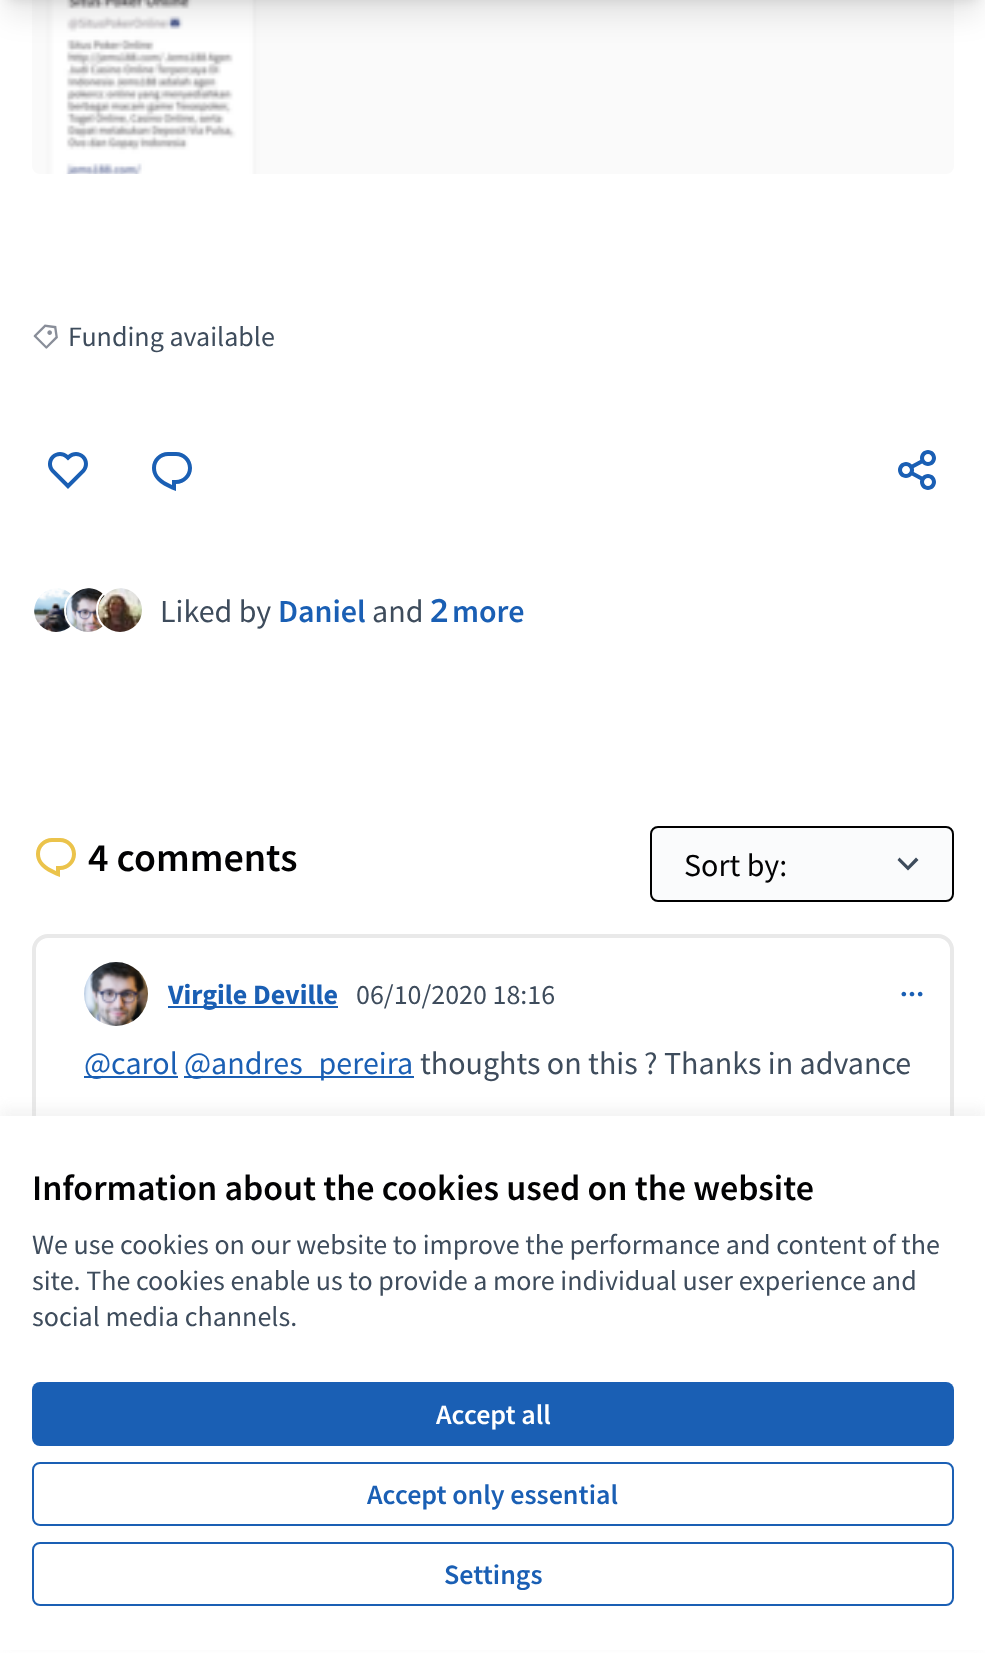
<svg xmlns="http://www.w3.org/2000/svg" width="985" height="1653">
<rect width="100%" height="100%" fill="#fff"/>
<image x="32" y="0" width="922" height="174" href="media/1.png"/>
<rect x="8" y="-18" width="970" height="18" fill="#0000001a" filter="blur(6px)"/>
<rect x="6" y="-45" width="974" height="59" fill="#0000001a" filter="blur(15px)"/>
<image x="33" y="324" width="25" height="25" href="media/2.png"/>
<text x="68" y="346" style="font-family:Source Sans Pro;font-size:28px;fill:#3e4c5c">Funding available</text>
<image x="48" y="452" width="40" height="37" href="media/3.png"/>
<image x="152" y="452" width="40" height="39" href="media/4.png"/>
<image x="898" y="450" width="38" height="40" href="media/5.png"/>
<image x="34" y="588" width="39" height="44" href="media/6.png"/>
<circle cx="88" cy="610" r="23" fill="none" stroke="#fff" stroke-width="2"/>
<image x="66" y="588" width="39" height="44" href="media/7.png"/>
<circle cx="120" cy="610" r="23" fill="none" stroke="#fff" stroke-width="2"/>
<image x="98" y="588" width="44" height="44" href="media/8.png"/>
<text x="160" y="622" style="font-family:Source Sans Pro;font-size:32px;fill:#3e4c5c">Liked by</text>
<text x="278" y="622" style="font-family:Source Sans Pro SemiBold;font-size:32px;font-weight:600;fill:#1a5fb4">Daniel</text>
<text x="372" y="622" style="font-family:Source Sans Pro;font-size:32px;fill:#3e4c5c">and</text>
<text x="430" y="622" style="font-family:Noto Sans;font-size:32px;font-weight:600;fill:#1a5fb4">2</text>
<text x="452" y="622" style="font-family:Source Sans Pro SemiBold;font-size:32px;font-weight:600;fill:#1a5fb4">more</text>
<image x="36" y="838" width="40" height="39" href="media/9.png"/>
<text x="88" y="871" style="font-family:Source Sans Pro SemiBold;font-size:40px;font-weight:600;fill:#020203">4 comments</text>
<rect x="650" y="826" width="304" height="76" rx="8" fill="#fafbfc"/>
<path d="M908 866l8-8.5l2.5 2.5l-10.5 10.5l-10.5-10.5l2-2.5z" fill="#3e4c5c"/>
<rect x="651" y="827" width="302" height="74" rx="7" fill="none" stroke="#000" stroke-width="2"/>
<text x="684" y="876" style="font-family:Source Sans Pro;font-size:32px;fill:#020203">Sort by:</text>
<rect x="34" y="936" width="918" height="244" rx="14" fill="none" stroke="#e9e9e9" stroke-width="4"/>
<image x="84" y="962" width="64" height="64" href="media/10.png"/>
<rect x="168" y="1006" width="170" height="2" fill="#1a5fb4"/>
<text x="168" y="1004" style="font-family:Source Sans Pro;font-size:28px;font-weight:bold;fill:#1a5fb4">Virgile Deville</text>
<text x="356" y="1004" style="font-family:Source Sans Pro;font-size:28px;fill:#3e4c5c">06/10/2020 18:16</text>
<image x="901" y="991" width="22" height="6" href="media/11.png"/>
<rect x="84" y="1076" width="94" height="2" fill="#1a5fb4"/>
<text x="84" y="1074" style="font-family:Source Sans Pro;font-size:32px;fill:#1a5fb4">@carol</text>
<rect x="184" y="1076" width="230" height="2" fill="#1a5fb4"/>
<text x="184" y="1074" style="font-family:Source Sans Pro;font-size:32px;fill:#1a5fb4">@andres_pereira</text>
<text x="420" y="1074" style="font-family:Source Sans Pro;font-size:32px;fill:#3e4c5c">thoughts on this ? Thanks in advance</text>
<rect y="1108" width="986" height="538" fill="#d3d3d340" filter="blur(6px)"/>
<rect y="1116" width="985" height="534" fill="#fff"/>
<text x="32" y="1200" style="font-family:Source Sans Pro SemiBold;font-size:36px;font-weight:600;fill:#020203">Information about the cookies used on the website</text>
<text x="32" y="1254" style="font-family:Source Sans Pro;font-size:28px;fill:#3e4c5c">We use cookies on our website to improve the performance and content of the</text>
<text x="32" y="1290" style="font-family:Source Sans Pro;font-size:28px;fill:#3e4c5c">site. The cookies enable us to provide a more individual user experience and</text>
<text x="32" y="1326" style="font-family:Source Sans Pro;font-size:28px;fill:#3e4c5c">social media channels.</text>
<rect x="32" y="1382" width="922" height="64" rx="8" fill="#1a5fb4"/>
<text x="436" y="1424" style="font-family:Source Sans Pro SemiBold;font-size:28px;font-weight:600;fill:#fff">Accept all</text>
<rect x="33" y="1463" width="920" height="62" rx="7" fill="none" stroke="#1a5fb4" stroke-width="2"/>
<text x="367" y="1504" style="font-family:Source Sans Pro SemiBold;font-size:28px;font-weight:600;fill:#1a5fb4">Accept only essential</text>
<rect x="33" y="1543" width="920" height="62" rx="7" fill="none" stroke="#1a5fb4" stroke-width="2"/>
<text x="444" y="1584" style="font-family:Source Sans Pro SemiBold;font-size:28px;font-weight:600;fill:#1a5fb4">Settings</text>
</svg>
